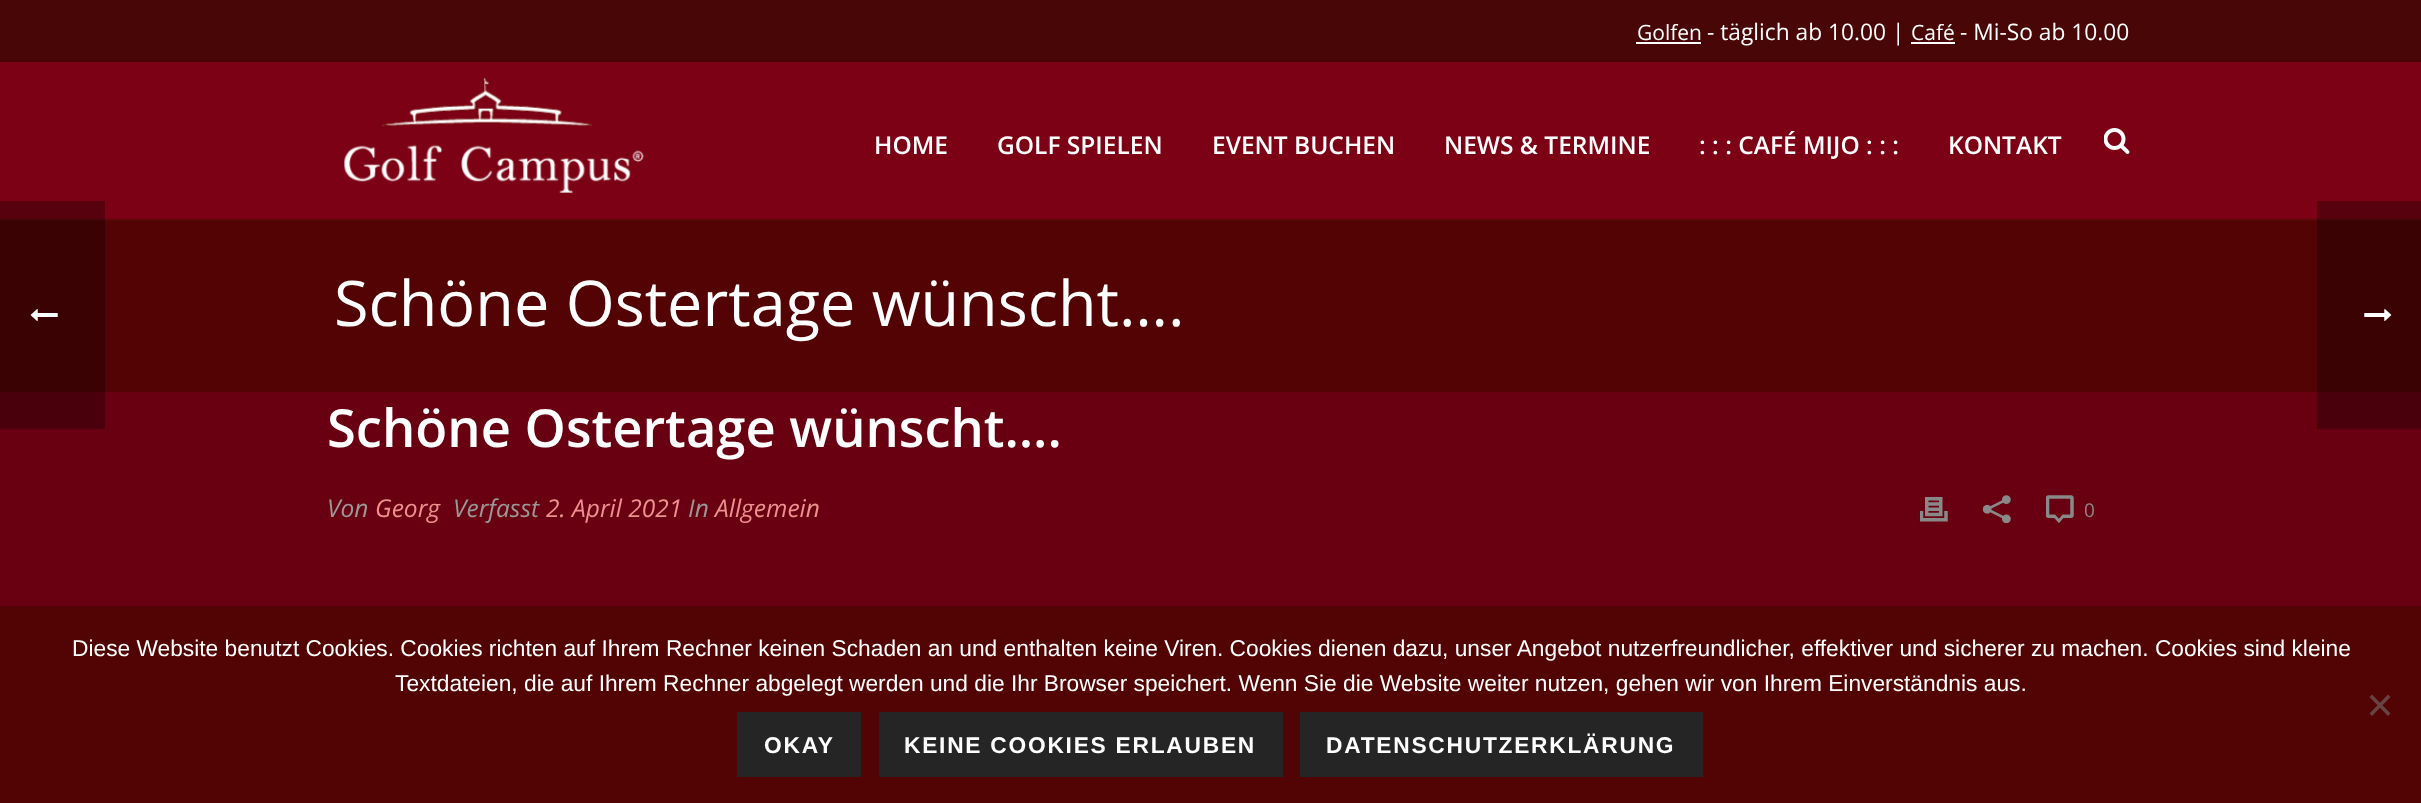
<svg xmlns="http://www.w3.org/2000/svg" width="2421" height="803">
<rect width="100%" height="100%" fill="#690011"/>
<rect y="221" width="105" height="171" fill="#3a0202"/>
<image x="30" y="309" width="28" height="12" href="media/1.png"/>
<rect x="105" y="221" width="2212" height="171" fill="#530303"/>
<rect x="2317" y="221" width="104" height="171" fill="#3a0202"/>
<rect width="2421" height="60" fill="#480606"/>
<rect y="60" width="2421" height="2" fill="#470202"/>
<text x="1637" y="40" style="font-family:Open Sans;font-size:21px;fill:#fff">Golfen</text>
<rect x="1636" y="42" width="65" height="2" fill="#fff"/>
<text x="1707" y="40" style="font-family:Open Sans;font-size:22.75px;fill:#fff">- täglich ab 10.00 |</text>
<text x="1911" y="40" style="font-family:Open Sans;font-size:21px;fill:#fff">Café</text>
<rect x="1911" y="42" width="44" height="2" fill="#fff"/>
<text x="1960" y="40" style="font-family:Open Sans;font-size:22.75px;fill:#fff">- Mi-So ab 10.00</text>
<rect x="105" y="219" width="2212" height="2" fill="#590808"/>
<rect x="2317" y="219" width="104" height="2" fill="#3e0606"/>
<rect y="219" width="105" height="2" fill="#3e0606"/>
<rect y="62" width="2421" height="157" fill="#7c0114"/>
<rect x="2317" y="201" width="104" height="18" fill="#57010e"/>
<rect y="201" width="105" height="18" fill="#57010e"/>
<image x="344" y="77" width="300" height="116" href="media/2.png"/>
<text x="874" y="154" style="font-family:Open Sans;font-size:24.5px;font-weight:600;fill:#fff">HOME</text>
<text x="997" y="154" style="font-family:Open Sans;font-size:24.5px;font-weight:600;fill:#fff">GOLF SPIELEN</text>
<text x="1212" y="154" style="font-family:Open Sans;font-size:24.5px;font-weight:600;fill:#fff">EVENT BUCHEN</text>
<text x="1444" y="154" style="font-family:Open Sans;font-size:24.5px;font-weight:600;fill:#fff">NEWS &amp; TERMINE</text>
<text x="1699" y="154" style="font-family:Open Sans;font-size:24.5px;font-weight:600;fill:#fff">: : : CAFÉ MIJO : : :</text>
<text x="1948" y="154" style="font-family:Open Sans;font-size:24.5px;font-weight:600;fill:#fff">KONTAKT</text>
<image x="2104" y="128" width="26" height="26" href="media/3.png"/>
<text x="334" y="326" style="font-family:Open Sans;font-size:63px;fill:#fff">Schöne Ostertage wünscht….</text>
<rect x="2317" y="392" width="104" height="37" fill="#4a000c"/>
<rect y="392" width="105" height="37" fill="#4a000c"/>
<text x="327" y="447" style="font-family:Open Sans;font-size:52.5px;font-weight:600;fill:#fff">Schöne Ostertage wünscht….</text>
<text x="327" y="517" style="font-family:Open Sans;font-size:24.5px;font-style:italic;fill:#999">Von</text>
<text x="375" y="517" style="font-family:Open Sans;font-size:24.5px;font-style:italic;fill:#ed9090">Georg</text>
<text x="453" y="517" style="font-family:Open Sans;font-size:24.5px;font-style:italic;fill:#999">Verfasst</text>
<text x="546" y="517" style="font-family:Open Sans;font-size:24.5px;font-style:italic;fill:#ed9090">2. April 2021</text>
<text x="688" y="517" style="font-family:Open Sans;font-size:24.5px;font-style:italic;fill:#999">In</text>
<text x="715" y="517" style="font-family:Open Sans;font-size:24.5px;font-style:italic;fill:#ed9090">Allgemein</text>
<image x="1920" y="497" width="28" height="25" href="media/4.png"/>
<image x="1983" y="495" width="28" height="28" href="media/5.png"/>
<image x="2046" y="495" width="28" height="28" href="media/6.png"/>
<text x="2084" y="517" style="font-family:Open Sans;font-size:19px;fill:#898989">0</text>
<image x="2364" y="309" width="28" height="12" href="media/7.png"/>
<rect y="606" width="2421" height="197" fill="#520303"/>
<text x="72" y="656" style="font-family:Liberation Sans;font-size:22.75px;fill:#fff">Diese Website benutzt Cookies. Cookies richten auf Ihrem Rechner keinen Schaden an und enthalten keine Viren. Cookies dienen dazu, unser Angebot nutzerfreundlicher, effektiver und sicherer zu machen. Cookies sind kleine</text>
<text x="395" y="691" style="font-family:Liberation Sans;font-size:22.75px;fill:#fff">Textdateien, die auf Ihrem Rechner abgelegt werden und die Ihr Browser speichert. Wenn Sie die Website weiter nutzen, gehen wir von Ihrem Einverständnis aus.</text>
<path d="M2388 694.5l2.5 2.5l-18.5 19l-2.5-2.5z" fill="#694242"/>
<path d="M2369.5 697l2.5-2.5l18.5 19l-2.5 2.5z" fill="#694242"/>
<rect x="737" y="712" width="124" height="65" fill="#252525"/>
<text x="764" y="753" style="font-family:Liberation Sans;font-size:22.75px;font-weight:bold;letter-spacing:1.75px;fill:#fff">OKAY</text>
<rect x="879" y="712" width="404" height="65" fill="#252525"/>
<text x="904" y="753" style="font-family:Liberation Sans;font-size:22.75px;font-weight:bold;letter-spacing:1.75px;fill:#fff">KEINE COOKIES ERLAUBEN</text>
<rect x="1300" y="712" width="403" height="65" fill="#252525"/>
<text x="1326" y="753" style="font-family:Liberation Sans;font-size:22.75px;font-weight:bold;letter-spacing:1.75px;fill:#fff">DATENSCHUTZERKLÄRUNG</text>
</svg>
